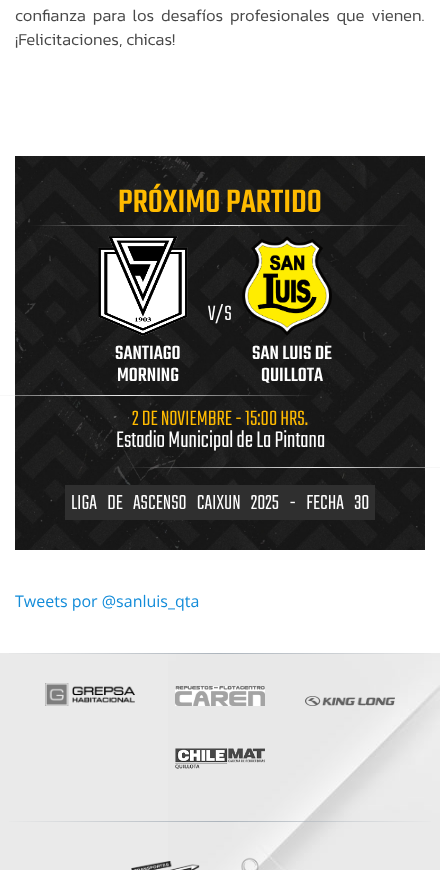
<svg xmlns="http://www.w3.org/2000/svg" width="440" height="870">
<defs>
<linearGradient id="g1" gradientUnits="userSpaceOnUse" x1="315" y1="395" x2="-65" y2="396"><stop offset="0" stop-color="#ececec" stop-opacity="0"/><stop offset="0.5" stop-color="#ececec"/><stop offset="1" stop-color="#ececec" stop-opacity="0"/></linearGradient>
<linearGradient id="g2" gradientUnits="userSpaceOnUse" x1="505" y1="467" x2="125" y2="468"><stop offset="0" stop-color="#ececec" stop-opacity="0"/><stop offset="0.5" stop-color="#ececec"/><stop offset="1" stop-color="#ececec" stop-opacity="0"/></linearGradient>
<linearGradient id="g3" gradientUnits="userSpaceOnUse" x1="440" y1="654" x2="0" y2="654"><stop offset="0" stop-color="#adb5bd" stop-opacity="0"/><stop offset="0.5" stop-color="#adb5bd"/><stop offset="1" stop-color="#adb5bd" stop-opacity="0"/></linearGradient>
<linearGradient id="g4" gradientUnits="userSpaceOnUse" x1="440" y1="822" x2="0" y2="822"><stop offset="0" stop-color="#adb5bd" stop-opacity="0"/><stop offset="0.5" stop-color="#adb5bd"/><stop offset="1" stop-color="#adb5bd" stop-opacity="0"/></linearGradient>
</defs>
<rect width="100%" height="100%" fill="#eaeaea"/>
<image x="168" y="653" width="272" height="217" href="media/1.png"/>
<rect width="440" height="653" fill="#fff"/>
<text x="15" y="21" word-spacing="3" style="font-family:Kanit;font-size:16.8px;font-weight:300;fill:#484848">confianza para los desafíos profesionales que vienen.</text>
<text x="15" y="45" style="font-family:Kanit;font-size:16.8px;font-weight:300;fill:#484848">¡Felicitaciones, chicas!</text>
<image x="15" y="156" width="410" height="394" href="media/2.png"/>
<text x="118" y="212" style="font-family:Teko;font-size:35.25px;font-weight:500;fill:#fb0">PRÓXIMO PARTIDO</text>
<text x="208" y="320" style="font-family:Teko;font-size:23px;font-weight:300;fill:#fff">V/S</text>
<image x="98" y="236" width="90" height="100" href="media/3.png"/>
<text x="115" y="359" style="font-family:Teko;font-size:21px;font-weight:500;fill:#fff">SANTIAGO</text>
<text x="117" y="381" style="font-family:Teko;font-size:21px;font-weight:500;fill:#fff">MORNING</text>
<image x="242" y="236" width="90" height="100" href="media/4.png"/>
<text x="252" y="359" style="font-family:Teko;font-size:21px;font-weight:500;fill:#fff">SAN LUIS DE</text>
<text x="261" y="381" style="font-family:Teko;font-size:21px;font-weight:500;fill:#fff">QUILLOTA</text>
<rect y="395" width="315" height="1" fill="url(#g1)"/>
<text x="132" y="425" style="font-family:Teko;font-size:23px;font-weight:300;fill:#fb0">2 DE NOVIEMBRE - 15:00 HRS.</text>
<text x="116" y="447" style="font-family:Teko;font-size:25px;font-weight:300;fill:#fff">Estadio Municipal de La Pintana</text>
<rect x="125" y="467" width="315" height="1" fill="url(#g2)"/>
<rect x="65" y="485" width="310" height="35" fill="#2f2f2f"/>
<text x="71" y="509" word-spacing="7.25" style="font-family:Teko;font-size:22.4px;font-weight:300;fill:#fff">LIGA DE ASCENSO CAIXUN 2025 - FECHA 30</text>
<text x="15" y="607" style="font-family:Open Sans;font-size:16px;fill:#138cd9">Tweets por @sanluis_qta</text>
<rect x="9" y="653" width="422" height="1" fill="url(#g3)"/>
<image x="45" y="683" width="90" height="23" href="media/5.png"/>
<image x="175" y="686" width="90" height="20" href="media/6.png"/>
<image x="305" y="696" width="90" height="10" href="media/7.png"/>
<image x="175" y="748" width="90" height="21" href="media/8.png"/>
<rect x="9" y="821" width="422" height="1" fill="url(#g4)"/>
<image x="131" y="861" width="69" height="9" href="media/9.png"/>
<image x="241" y="857" width="18" height="13" href="media/10.png"/>
</svg>
